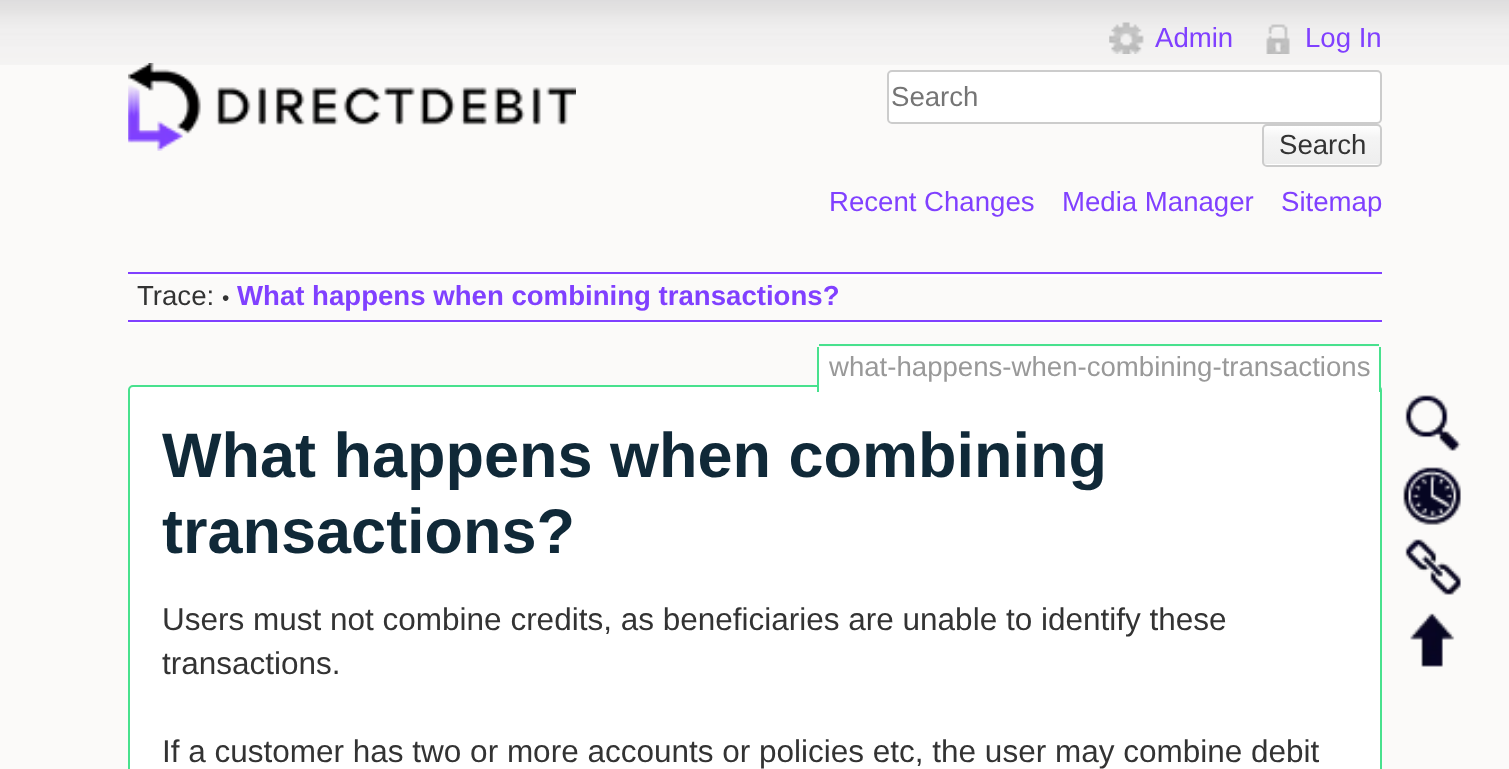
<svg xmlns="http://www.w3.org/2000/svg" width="1509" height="769">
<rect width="100%" height="100%" fill="#fbfaf9"/>
<image x="0" y="0" width="1509" height="65" href="media/1.png"/>
<image x="128" y="63" width="448" height="88" href="media/2.png"/>
<image x="1109" y="22" width="35" height="32" href="media/3.png"/>
<text x="1155" y="47" style="font-family:Liberation Sans;font-size:27.6px;fill:#8040ff">Admin</text>
<image x="1266" y="24" width="24" height="30" href="media/4.png"/>
<text x="1305" y="47" style="font-family:Liberation Sans;font-size:27.6px;fill:#8040ff">Log In</text>
<rect x="888" y="71" width="493" height="52" rx="4" fill="#fff" stroke="#ccc" stroke-width="2"/>
<text x="891" y="106" style="font-family:Liberation Sans;font-size:27.6px;fill:#757575">Search</text>
<image x="1262" y="124" width="119" height="42" href="media/5.png"/>
<rect x="1263" y="125" width="118" height="41" rx="4" fill="none" stroke="#ccc" stroke-width="2"/>
<text x="1279" y="154" style="font-family:Liberation Sans;font-size:27.6px;fill:#333">Search</text>
<text x="829" y="211" style="font-family:Liberation Sans;font-size:27.6px;fill:#8040ff">Recent Changes</text>
<text x="1062" y="211" style="font-family:Liberation Sans;font-size:27.6px;fill:#8040ff">Media Manager</text>
<text x="1281" y="211" style="font-family:Liberation Sans;font-size:27.6px;fill:#8040ff">Sitemap</text>
<rect x="128" y="272" width="1254" height="2" fill="#8040ff"/>
<rect x="128" y="322" width="1254" height="2" fill="#fff"/>
<rect x="128" y="275" width="1254" height="2" fill="#fff"/>
<rect x="128" y="320" width="1254" height="2" fill="#8040ff"/>
<text x="137" y="305" style="font-family:Liberation Sans;font-size:27.6px;fill:#333">Trace:</text>
<text x="222" y="305" style="font-family:Liberation Sans;font-size:21px;fill:#333">•</text>
<text x="237" y="305" style="font-family:Liberation Sans;font-size:27.6px;font-weight:bold;fill:#8040ff">What happens when combining transactions?</text>
<rect x="129" y="386" width="1252" height="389" rx="4" fill="#fff" stroke="#48e18e" stroke-width="2"/>
<path d="M821 347h556c1 0 2 1 2 2v43h-560v-43c0-1 1-2 2-2z" fill="#fff"/>
<rect x="819" y="344" width="560" height="2" fill="#48e18e"/>
<rect x="1379" y="347" width="2" height="45" fill="#48e18e"/>
<rect x="817" y="347" width="2" height="45" fill="#48e18e"/>
<text x="829" y="376" style="font-family:Liberation Sans;font-size:27.6px;fill:#999">what-happens-when-combining-transactions</text>
<text x="162" y="477" style="font-family:Liberation Sans;font-size:63px;font-weight:bold;fill:#102938">What happens when combining</text>
<text x="162" y="553" style="font-family:Liberation Sans;font-size:63px;font-weight:bold;fill:#102938">transactions?</text>
<text x="162" y="630" style="font-family:Liberation Sans;font-size:31.5px;fill:#333">Users must not combine credits, as beneficiaries are unable to identify these</text>
<text x="162" y="674" style="font-family:Liberation Sans;font-size:31.5px;fill:#333">transactions.</text>
<text x="162" y="762" style="font-family:Liberation Sans;font-size:31.5px;fill:#333">If a customer has two or more accounts or policies etc, the user may combine debit</text>
<image x="1405" y="395" width="56" height="56" href="media/6.png"/>
<image x="1403" y="467" width="58" height="58" href="media/7.png"/>
<image x="1405" y="539" width="56" height="56" href="media/8.png"/>
<image x="1410" y="613" width="45" height="54" href="media/9.png"/>
</svg>
